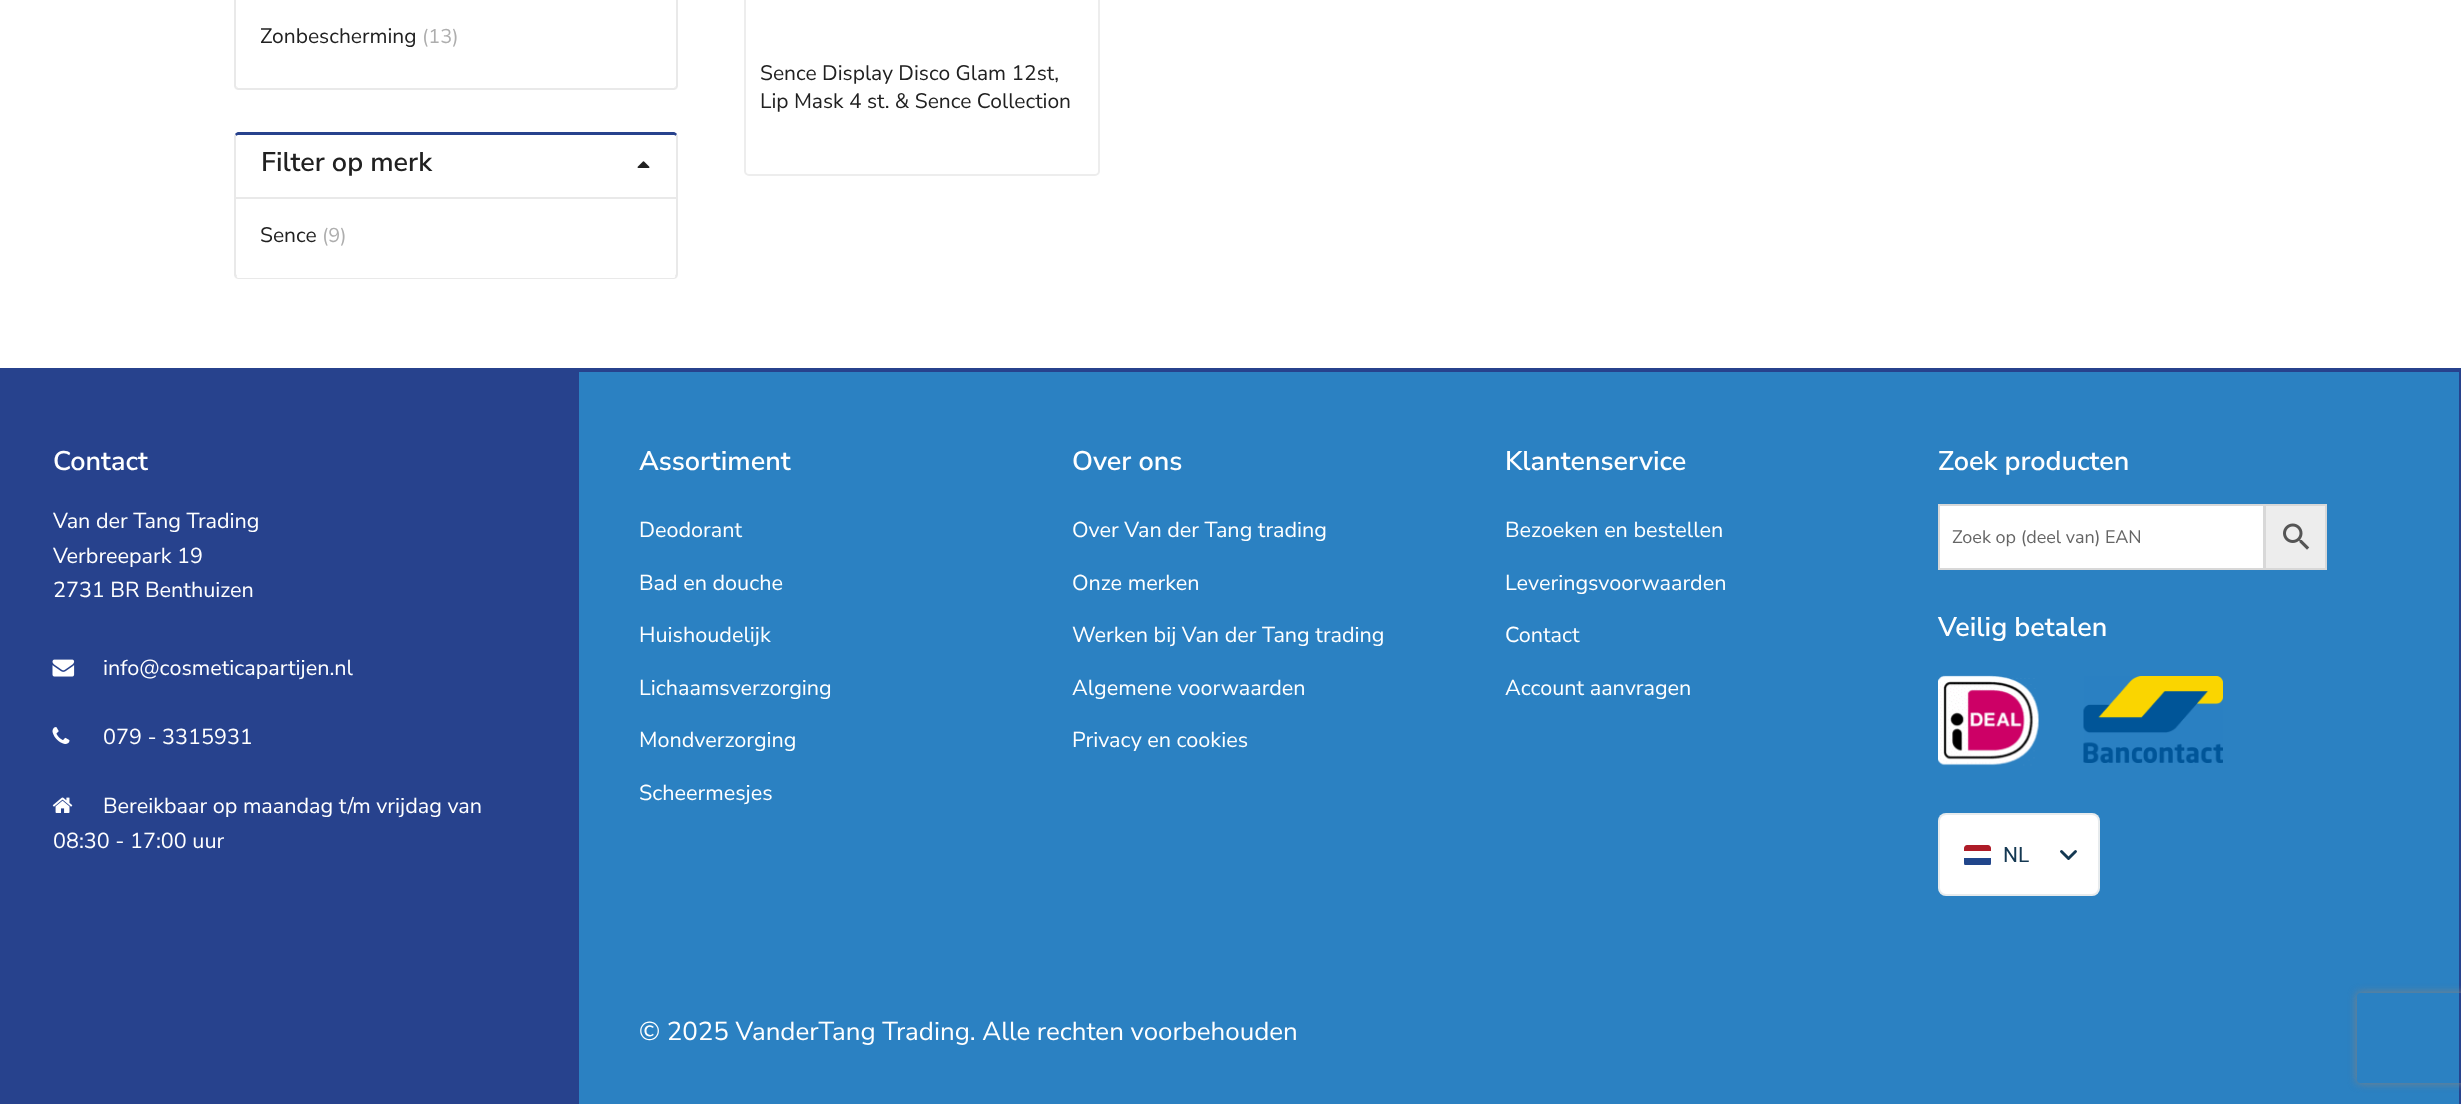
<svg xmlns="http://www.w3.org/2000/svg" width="2461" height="1104">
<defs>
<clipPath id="clip1"><rect x="1964" y="845" width="27" height="21" rx="3"/></clipPath>
<clipPath id="clip2"><path d="M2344 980h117v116h-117zm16 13h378c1.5 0 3 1.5 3 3v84c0 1.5-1.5 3-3 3h-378c-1.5 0-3-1.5-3-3v-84c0-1.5 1.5-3 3-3z" clip-rule="evenodd"/></clipPath>
</defs>
<rect width="100%" height="100%" fill="#fff"/>
<path d="M678 86v-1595l-1-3l-1 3v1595l-1 1l2 2z" fill="#e9e9e9"/>
<path d="M238 90h436l3-1l-2-2l-1 1h-436l-1-1l-2 2z" fill="#e9e9e9"/>
<path d="M234-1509v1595l1 3l2-2l-1-1v-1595l-1-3z" fill="#e9e9e9"/>
<text x="260" y="43" style="font-family:Nunito Sans;font-size:21px;fill:#212121">Zonbescherming</text>
<text x="422" y="43" style="font-family:Nunito Sans;font-size:20px;fill:#aeaeae">(13)</text>
<path d="M238 132c-1 0-2 1-3 2l1 2c0 0 1-1 2-1h436c1 0 2 1 2 1l1-2c-1-1-2-2-3-2z" fill="#28428d"/>
<path d="M678 274v-138l-1-2l-1 2v138l-1 2l2 2c0-1 1-2 1-4z" fill="#e9e9e9"/>
<path d="M238 279h436l3-1l-2-2c0 1 0 2-1 2h-436c-1 0-1-1-1-2l-2 2z" fill="#e9e9e9"/>
<path d="M234 136v139l1 3l2-2l-1-2v-138l-1-2z" fill="#e9e9e9"/>
<rect x="234" y="197" width="443" height="2" fill="#e9e9e9"/>
<text x="261" y="171" style="font-family:Nunito Sans;font-size:27px;font-weight:600;fill:#212121">Filter op merk</text>
<image x="637" y="161" width="13" height="7" href="media/1.png"/>
<text x="260" y="242" style="font-family:Nunito Sans;font-size:21px;fill:#212121">Sence</text>
<text x="322" y="242" style="font-family:Nunito Sans;font-size:20px;fill:#aeaeae">(9)</text>
<rect x="745" y="-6" width="354" height="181" rx="4" fill="none" stroke="#ededed" stroke-width="2"/>
<text x="760" y="80" style="font-family:Nunito Sans;font-size:21px;fill:#212121">Sence Display Disco Glam 12st,</text>
<text x="760" y="108" style="font-family:Nunito Sans;font-size:21px;fill:#212121">Lip Mask 4 st. &amp; Sence Collection</text>
<rect y="368" width="2461" height="736" fill="#27428d"/>
<text x="53" y="470" style="font-family:Nunito Sans;font-size:27px;font-weight:600;fill:#fff">Contact</text>
<text x="53" y="528" style="font-family:Nunito Sans;font-size:21.6px;fill:#fff">Van der Tang Trading</text>
<text x="53" y="563" style="font-family:Nunito Sans;font-size:21.6px;fill:#fff">Verbreepark 19</text>
<text x="53" y="597" style="font-family:Nunito Sans;font-size:21.6px;fill:#fff">2731 BR Benthuizen</text>
<image x="52" y="659" width="23" height="18" href="media/2.png"/>
<text x="103" y="675" style="font-family:Nunito Sans;font-size:21.6px;fill:#fff">info@cosmeticapartijen.nl</text>
<image x="52" y="727" width="18" height="17" href="media/3.png"/>
<text x="103" y="744" style="font-family:Nunito Sans;font-size:21.6px;fill:#fff">079 - 3315931</text>
<image x="52" y="797" width="21" height="16" href="media/4.png"/>
<text x="103" y="813" style="font-family:Nunito Sans;font-size:21.6px;fill:#fff">Bereikbaar op maandag t/m vrijdag van</text>
<text x="53" y="848" style="font-family:Nunito Sans;font-size:21.6px;fill:#fff">08:30 - 17:00 uur</text>
<rect x="579" y="372" width="1880" height="732" fill="#2b81c2"/>
<text x="639" y="470" style="font-family:Nunito Sans;font-size:27px;font-weight:600;fill:#fff">Assortiment</text>
<text x="639" y="537" style="font-family:Nunito Sans;font-size:21.6px;fill:#fff">Deodorant</text>
<text x="639" y="590" style="font-family:Nunito Sans;font-size:21.6px;fill:#fff">Bad en douche</text>
<text x="639" y="642" style="font-family:Nunito Sans;font-size:21.6px;fill:#fff">Huishoudelijk</text>
<text x="639" y="695" style="font-family:Nunito Sans;font-size:21.6px;fill:#fff">Lichaamsverzorging</text>
<text x="639" y="747" style="font-family:Nunito Sans;font-size:21.6px;fill:#fff">Mondverzorging</text>
<text x="639" y="800" style="font-family:Nunito Sans;font-size:21.6px;fill:#fff">Scheermesjes</text>
<text x="1072" y="470" style="font-family:Nunito Sans;font-size:27px;font-weight:600;fill:#fff">Over ons</text>
<text x="1072" y="537" style="font-family:Nunito Sans;font-size:21.6px;fill:#fff">Over Van der Tang trading</text>
<text x="1072" y="590" style="font-family:Nunito Sans;font-size:21.6px;fill:#fff">Onze merken</text>
<text x="1072" y="642" style="font-family:Nunito Sans;font-size:21.6px;fill:#fff">Werken bij Van der Tang trading</text>
<text x="1072" y="695" style="font-family:Nunito Sans;font-size:21.6px;fill:#fff">Algemene voorwaarden</text>
<text x="1072" y="747" style="font-family:Nunito Sans;font-size:21.6px;fill:#fff">Privacy en cookies</text>
<text x="1505" y="470" style="font-family:Nunito Sans;font-size:27px;font-weight:600;fill:#fff">Klantenservice</text>
<text x="1505" y="537" style="font-family:Nunito Sans;font-size:21.6px;fill:#fff">Bezoeken en bestellen</text>
<text x="1505" y="590" style="font-family:Nunito Sans;font-size:21.6px;fill:#fff">Leveringsvoorwaarden</text>
<text x="1505" y="642" style="font-family:Nunito Sans;font-size:21.6px;fill:#fff">Contact</text>
<text x="1505" y="695" style="font-family:Nunito Sans;font-size:21.6px;fill:#fff">Account aanvragen</text>
<text x="1938" y="470" style="font-family:Nunito Sans;font-size:27px;font-weight:600;fill:#fff">Zoek producten</text>
<rect x="2265" y="505" width="61" height="64" fill="#ededed" stroke="#d8d8d8" stroke-width="2"/>
<rect x="1939" y="505" width="325" height="64" fill="#fff" stroke="#d8d8d8" stroke-width="2"/>
<text x="1952" y="543" style="font-family:Nunito Sans;font-size:18px;fill:#656565">Zoek op (deel van) EAN</text>
<image x="2283" y="523" width="27" height="27" href="media/5.png"/>
<text x="1938" y="636" style="font-family:Nunito Sans;font-size:27px;font-weight:600;fill:#fff">Veilig betalen</text>
<image x="1938" y="675" width="101" height="91" href="media/6.png"/>
<image x="2083" y="676" width="140" height="87" href="media/7.png"/>
<rect x="1938" y="813" width="162" height="83" rx="8" fill="#fff"/>
<rect x="1939" y="814" width="160" height="81" rx="7" fill="none" stroke="#1438521a" stroke-width="2"/>
<path d="M1967 845h21c1.5 0 3 1.5 3 3v3h-27v-3c0-1.5 1.5-3 3-3z" fill="#ae1c28"/>
<g clip-path="url(#clip1)">
<rect x="1964" y="858" width="27" height="7" fill="#21468b"/>
</g>
<text x="2003" y="862" style="font-family:Roboto;font-size:21px;fill:#143852">NL</text>
<path d="M2061.5 851.5l7 7l7-7" fill="none" stroke="#143852" stroke-width="2.9" stroke-linecap="round" stroke-linejoin="round"/>
<text x="639" y="1040" style="font-family:Nunito Sans;font-size:25.9px;fill:#fff">© 2025 VanderTang Trading. Alle rechten voorbehouden</text>
<g clip-path="url(#clip2)">
<rect x="2357" y="993" width="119" height="90" rx="3" fill="#808080" filter="blur(4px)"/>
</g>
</svg>
